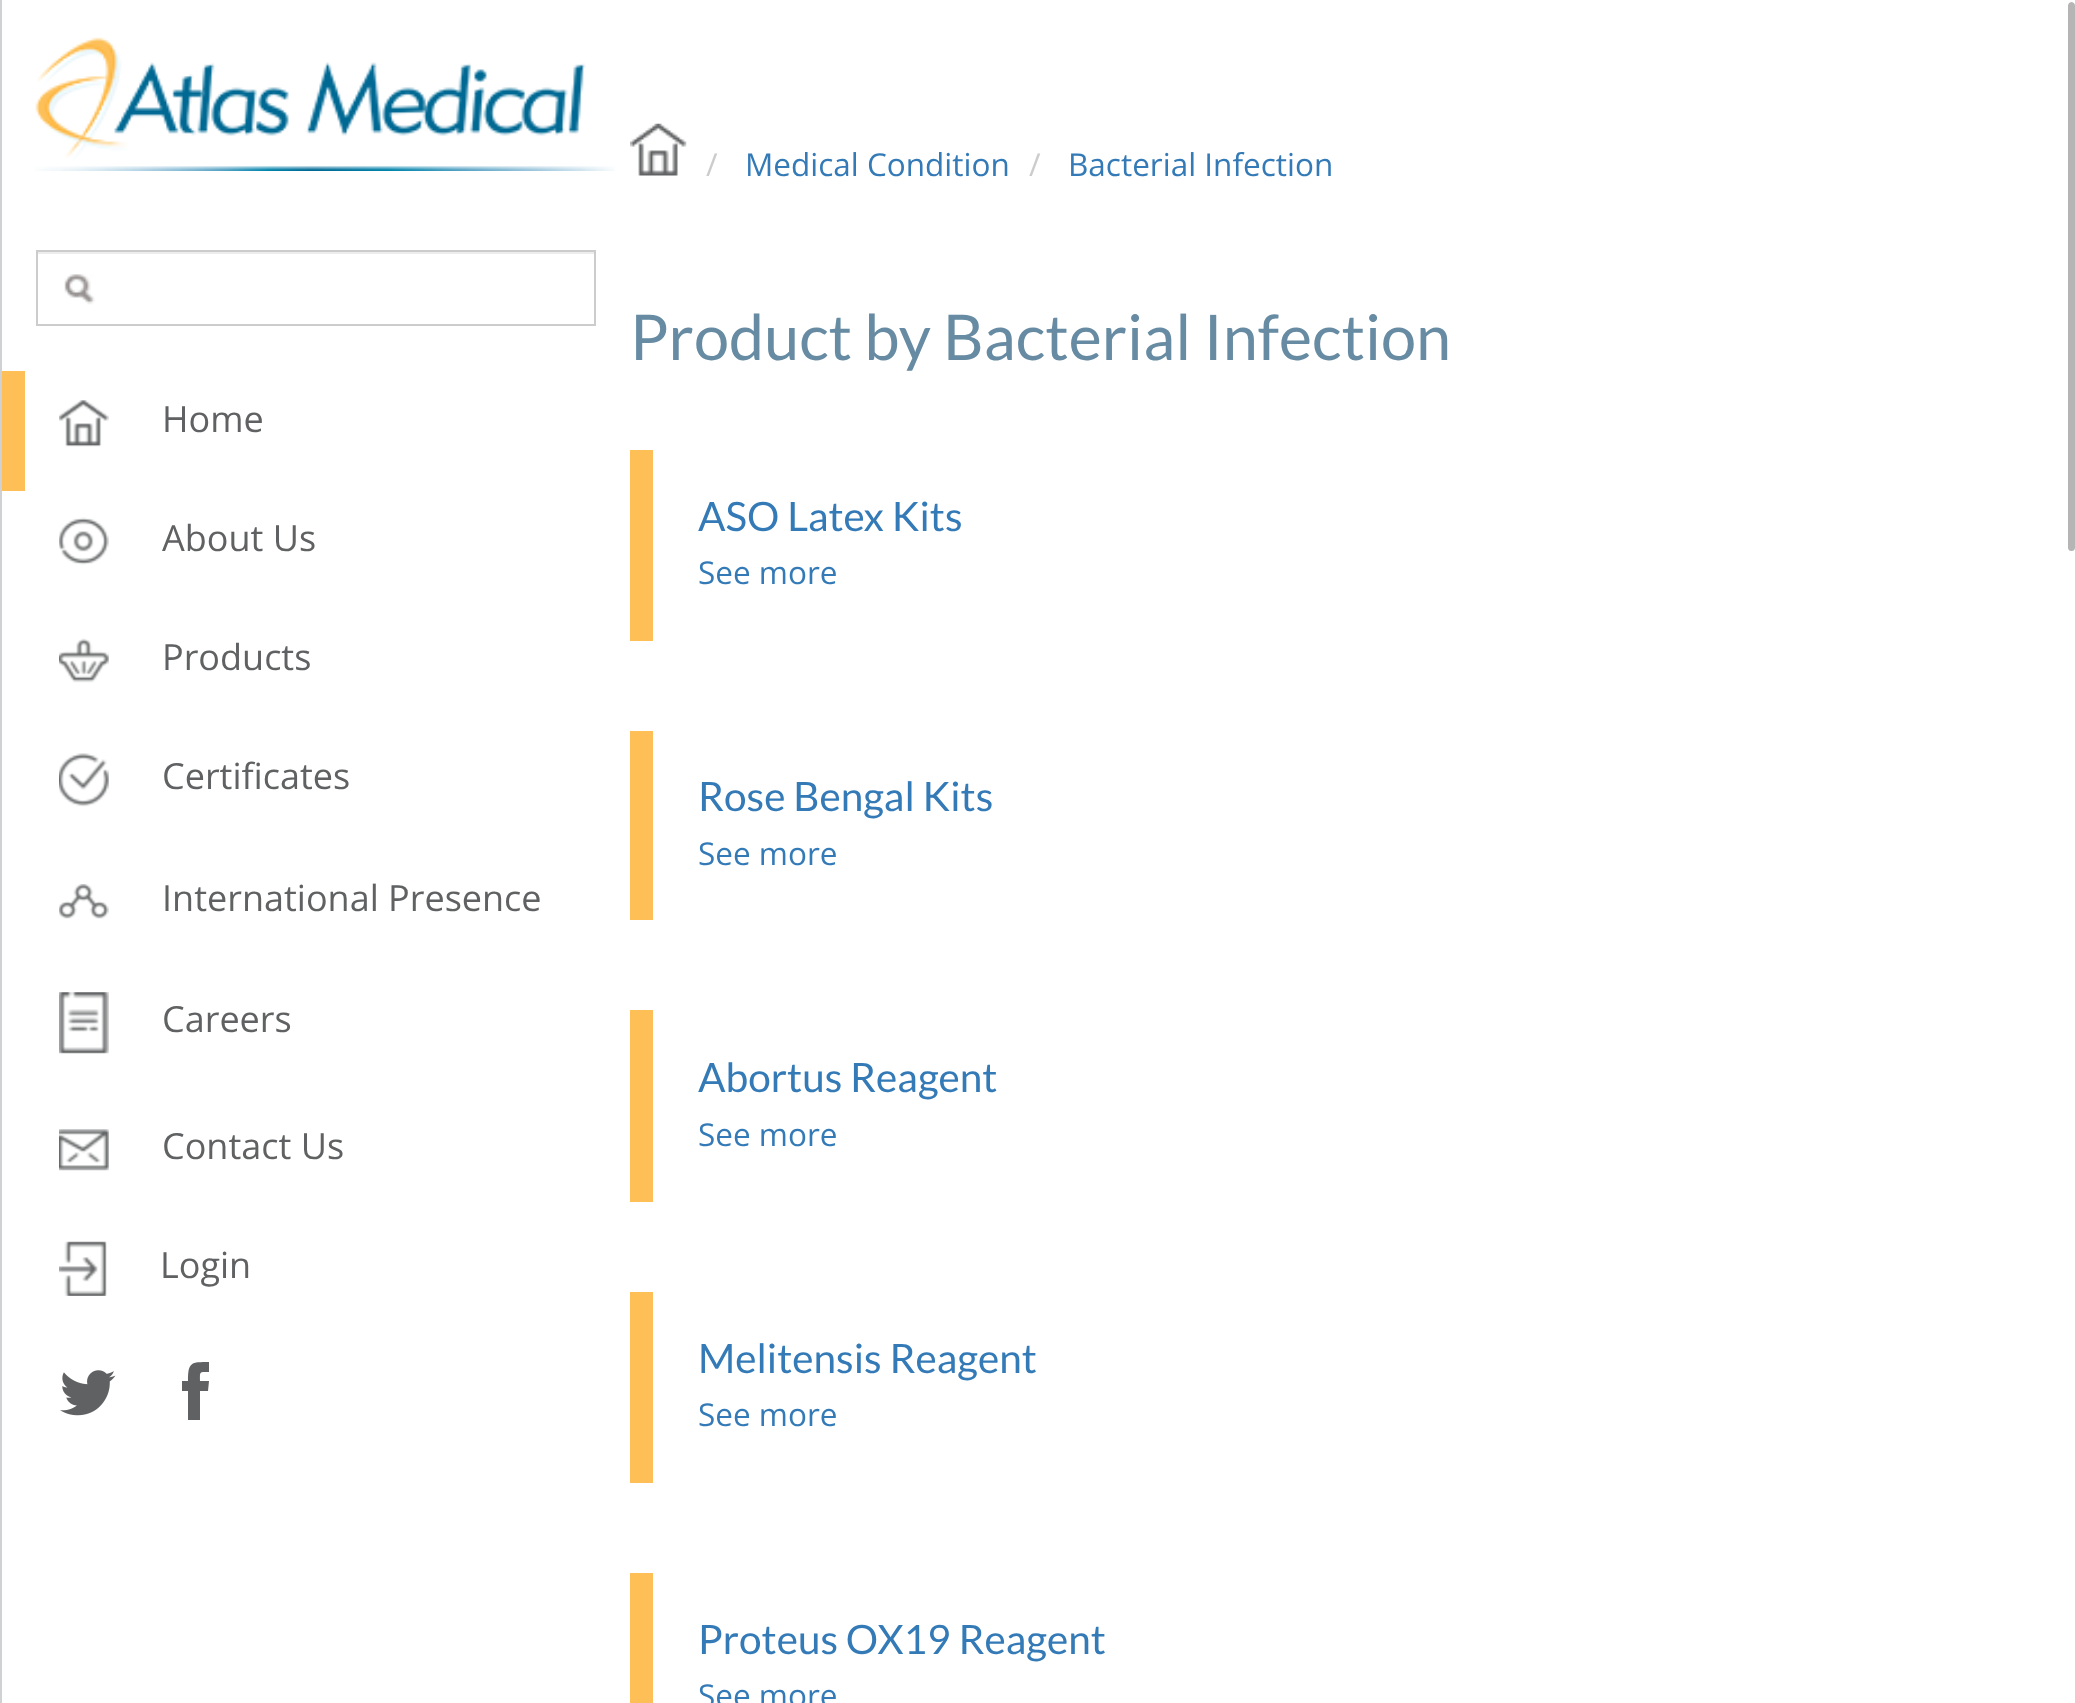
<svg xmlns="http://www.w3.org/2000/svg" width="2075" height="1703">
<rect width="100%" height="100%" fill="#fff"/>
<rect width="2" height="1703" fill="#d0d1d2"/>
<image x="35" y="37" width="580" height="134" href="media/1.png"/>
<image x="64" y="274" width="31" height="31" href="media/2.png"/>
<rect x="38" y="252" width="556" height="2" fill="#ececec"/>
<rect x="37" y="251" width="558" height="74" fill="none" stroke="#ccc" stroke-width="2"/>
<rect x="2" y="371" width="23" height="120" fill="#fdbf56"/>
<image x="59" y="400" width="50" height="47" href="media/3.png"/>
<text x="162" y="432" style="font-family:Open Sans;font-size:36px;fill:#5f6162">Home</text>
<image x="59" y="517" width="50" height="48" href="media/4.png"/>
<text x="162" y="551" style="font-family:Open Sans;font-size:36px;fill:#5f6162">About Us</text>
<image x="59" y="638" width="50" height="45" href="media/5.png"/>
<text x="162" y="670" style="font-family:Open Sans;font-size:36px;fill:#5f6162">Products</text>
<image x="59" y="753" width="50" height="54" href="media/6.png"/>
<text x="162" y="789" style="font-family:Open Sans;font-size:36px;fill:#5f6162">Certificates</text>
<image x="59" y="884" width="50" height="35" href="media/7.png"/>
<text x="162" y="911" style="font-family:Open Sans;font-size:36px;fill:#5f6162">International Presence</text>
<image x="59" y="992" width="50" height="62" href="media/8.png"/>
<text x="162" y="1032" style="font-family:Open Sans;font-size:36px;fill:#5f6162">Careers</text>
<image x="59" y="1129" width="50" height="42" href="media/9.png"/>
<text x="162" y="1159" style="font-family:Open Sans;font-size:36px;fill:#5f6162">Contact Us</text>
<image x="59" y="1241" width="48" height="55" href="media/10.png"/>
<text x="160" y="1278" style="font-family:Open Sans;font-size:36px;fill:#5f6162">Login</text>
<image x="60" y="1370" width="56" height="46" href="media/11.png"/>
<path d="M200 1381h9l-1 10h-8v29h-12v-29h-6v-10h6c0-19 3-19 21-19v10c-10 0-9-1-9 9z" fill="#5f6162"/>
<image x="630" y="123" width="57" height="53" href="media/12.png"/>
<text x="706" y="176" style="font-family:Open Sans;font-size:31.5px;fill:#ccc">/</text>
<text x="745" y="176" style="font-family:Open Sans;font-size:31.5px;fill:#337ab7">Medical Condition</text>
<text x="1029" y="176" style="font-family:Open Sans;font-size:31.5px;fill:#ccc">/</text>
<text x="1068" y="176" style="font-family:Open Sans;font-size:31.5px;fill:#337ab7">Bacterial Infection</text>
<text x="630" y="360" style="font-family:Lato;font-size:63px;fill:#668ba2">Product by Bacterial Infection</text>
<rect x="630" y="450" width="23" height="191" fill="#fdbf56"/>
<text x="698" y="531" style="font-family:Lato;font-size:40.5px;fill:#337ab7">ASO Latex Kits</text>
<text x="698" y="584" style="font-family:Open Sans;font-size:31.5px;fill:#337ab7">See more</text>
<rect x="630" y="731" width="23" height="189" fill="#fdbf56"/>
<text x="698" y="811" style="font-family:Lato;font-size:40.5px;fill:#337ab7">Rose Bengal Kits</text>
<text x="698" y="865" style="font-family:Open Sans;font-size:31.5px;fill:#337ab7">See more</text>
<rect x="630" y="1010" width="23" height="192" fill="#fdbf56"/>
<text x="698" y="1092" style="font-family:Lato;font-size:40.5px;fill:#337ab7">Abortus Reagent</text>
<text x="698" y="1146" style="font-family:Open Sans;font-size:31.5px;fill:#337ab7">See more</text>
<rect x="630" y="1292" width="23" height="191" fill="#fdbf56"/>
<text x="698" y="1373" style="font-family:Lato;font-size:40.5px;fill:#337ab7">Melitensis Reagent</text>
<text x="698" y="1426" style="font-family:Open Sans;font-size:31.5px;fill:#337ab7">See more</text>
<rect x="630" y="1573" width="23" height="130" fill="#fdbf56"/>
<text x="698" y="1654" style="font-family:Lato;font-size:40.5px;fill:#337ab7">Proteus OX19 Reagent</text>
<text x="698" y="1707" style="font-family:Open Sans;font-size:31.5px;fill:#337ab7">See more</text>
<rect x="2068" y="2" width="7" height="549" rx="3.5" fill="#b5b5b5"/>
<rect x="2067" y="1" width="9" height="552" rx="4.5" fill="none" stroke="#fff" stroke-width="2"/>
</svg>
